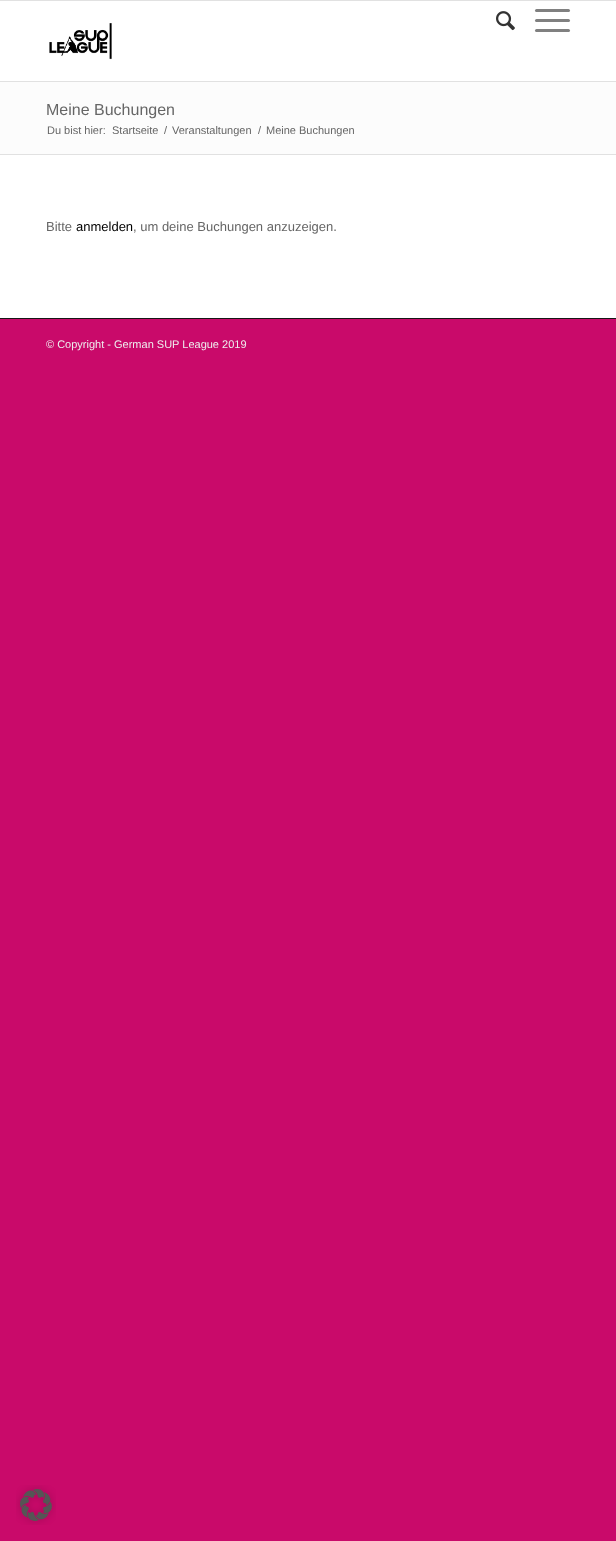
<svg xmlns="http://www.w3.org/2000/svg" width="616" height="1541">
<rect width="100%" height="100%" fill="#c90a6a"/>
<rect width="616" height="1" fill="#e1e1e1"/>
<rect y="81" width="616" height="1" fill="#e1e1e1"/>
<rect y="1" width="616" height="80" fill="#fff"/>
<image x="496" y="11" width="19" height="20" href="media/1.png"/>
<rect x="535" y="19" width="35" height="3" rx="1.5" fill="#808080"/>
<rect x="535" y="9" width="35" height="3" rx="1.5" fill="#808080"/>
<rect x="535" y="29" width="35" height="3" rx="1.5" fill="#808080"/>
<image x="49" y="23" width="63" height="37" href="media/2.png"/>
<rect y="155" width="616" height="163" fill="#fff"/>
<rect y="82" width="616" height="72" fill="#fcfcfc"/>
<text x="46" y="115" style="font-family:Liberation Sans;font-size:16px;fill:#666">Meine Buchungen</text>
<text x="47" y="134" style="font-family:Liberation Sans;font-size:11px;fill:#666">Du bist hier:</text>
<text x="112" y="134" style="font-family:Liberation Sans;font-size:11px;fill:#666">Startseite</text>
<text x="164" y="134" style="font-family:Liberation Sans;font-size:11px;fill:#666">/</text>
<text x="172" y="134" style="font-family:Liberation Sans;font-size:11px;fill:#666">Veranstaltungen</text>
<text x="258" y="134" style="font-family:Liberation Sans;font-size:11px;fill:#666">/</text>
<text x="266" y="134" style="font-family:Liberation Sans;font-size:11px;fill:#666">Meine Buchungen</text>
<rect y="154" width="616" height="1" fill="#e1e1e1"/>
<text x="46" y="231" style="font-family:Liberation Sans;font-size:13px;fill:#666">Bitte</text>
<text x="76" y="231" style="font-family:Liberation Sans;font-size:13px;fill:#000">anmelden</text>
<text x="133" y="231" style="font-family:Liberation Sans;font-size:13px;fill:#666">, um deine Buchungen anzuzeigen.</text>
<rect y="318" width="616" height="1" fill="#161616"/>
<text x="46" y="348" style="font-family:Liberation Sans;font-size:11px;fill:#eee">© Copyright - German SUP League 2019</text>
<image x="16" y="1485" width="40" height="40" href="media/3.png"/>
</svg>
